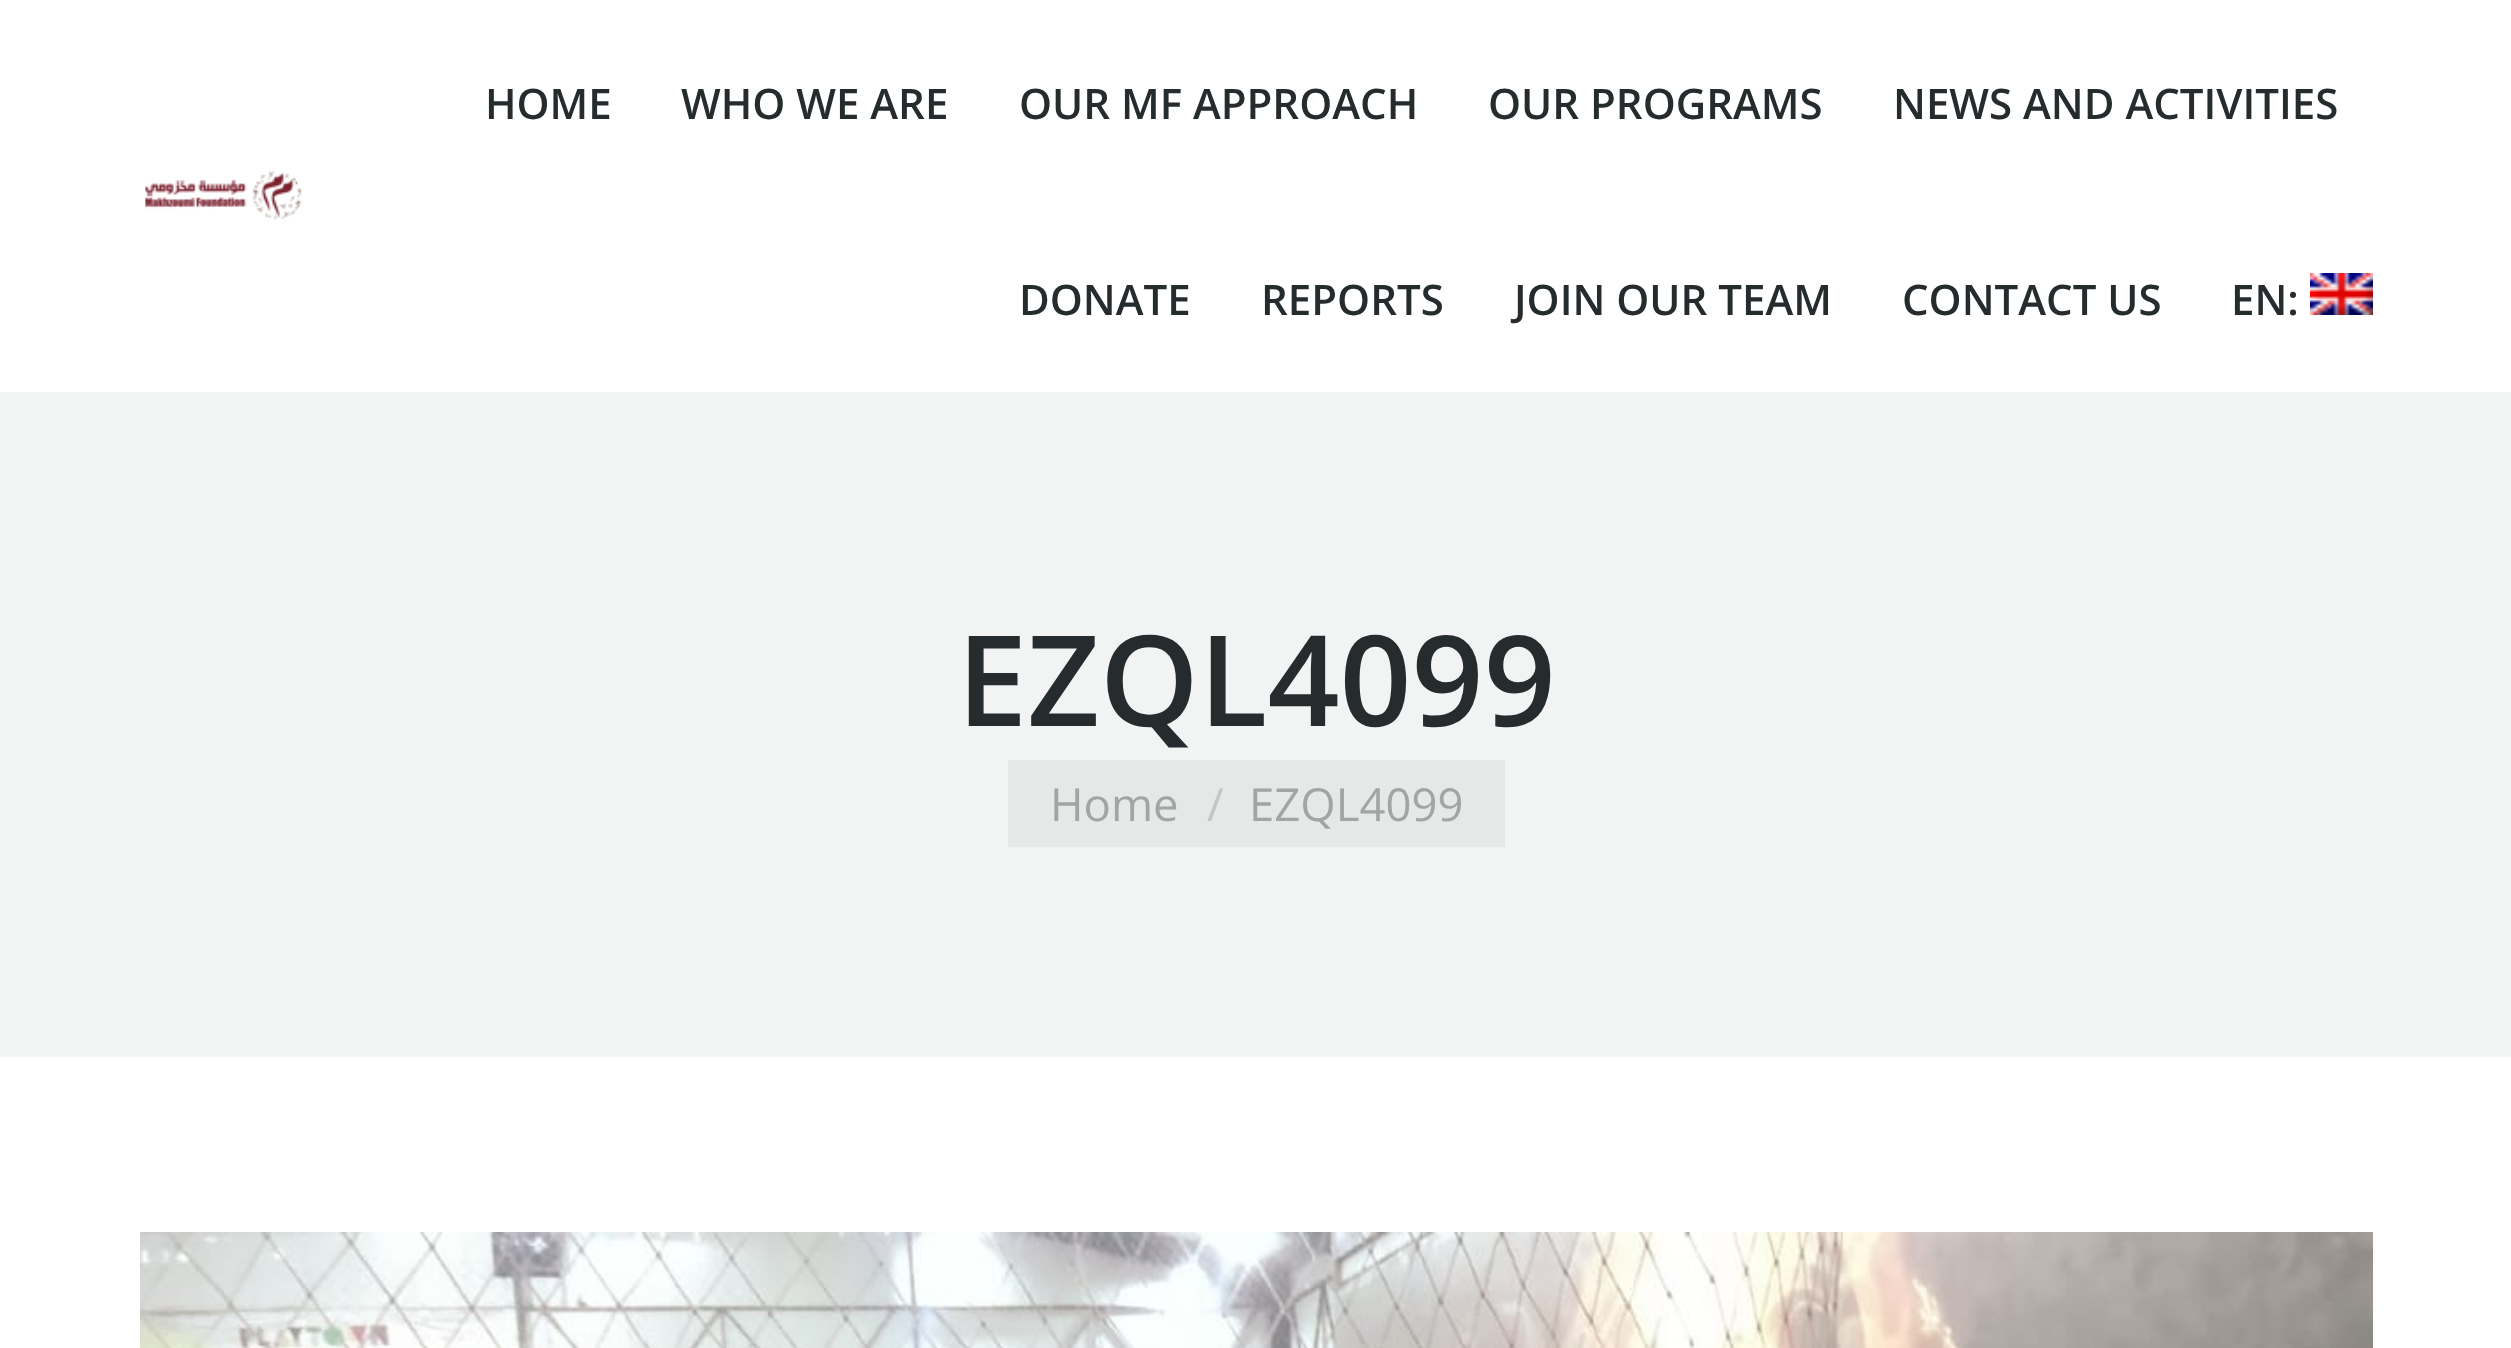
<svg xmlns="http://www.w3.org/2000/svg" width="2511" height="1348">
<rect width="100%" height="100%" fill="#fff"/>
<image x="145" y="171" width="157" height="49" href="media/1.png"/>
<text x="485" y="119" style="font-family:Open Sans;font-size:42px;font-weight:600;fill:#262b2e">HOME</text>
<text x="681" y="119" style="font-family:Open Sans;font-size:42px;font-weight:600;fill:#262b2e">WHO WE ARE</text>
<text x="1019" y="119" style="font-family:Open Sans;font-size:42px;font-weight:600;fill:#262b2e">OUR MF APPROACH</text>
<text x="1488" y="119" style="font-family:Open Sans;font-size:42px;font-weight:600;fill:#262b2e">OUR PROGRAMS</text>
<text x="1893" y="119" style="font-family:Open Sans;font-size:42px;font-weight:600;fill:#262b2e">NEWS AND ACTIVITIES</text>
<text x="1019" y="315" style="font-family:Open Sans;font-size:42px;font-weight:600;fill:#262b2e">DONATE</text>
<text x="1261" y="315" style="font-family:Open Sans;font-size:42px;font-weight:600;fill:#262b2e">REPORTS</text>
<text x="1514" y="315" style="font-family:Open Sans;font-size:42px;font-weight:600;fill:#262b2e">JOIN OUR TEAM</text>
<text x="1902" y="315" style="font-family:Open Sans;font-size:42px;font-weight:600;fill:#262b2e">CONTACT US</text>
<text x="2231" y="315" style="font-family:Open Sans;font-size:42px;font-weight:600;fill:#262b2e">EN:</text>
<image x="2310" y="273" width="63" height="42" href="media/2.png"/>
<rect y="392" width="2511" height="665" fill="#f2f3f3"/>
<text x="957" y="726" style="font-family:Open Sans;font-size:126px;font-weight:600;fill:#262b2e">EZQL4099</text>
<rect x="1008" y="760" width="497" height="87" fill="#e6e7e7"/>
<text x="1050" y="821" style="font-family:Open Sans;font-size:45.5px;fill:#a2a5a6">Home</text>
<text x="1207" y="821" style="font-family:Open Sans;font-size:45.5px;fill:#c4c6c7">/</text>
<text x="1249" y="821" style="font-family:Open Sans;font-size:45.5px;fill:#a2a5a6">EZQL4099</text>
<image x="140" y="1232" width="2233" height="116" href="media/3.png"/>
</svg>
